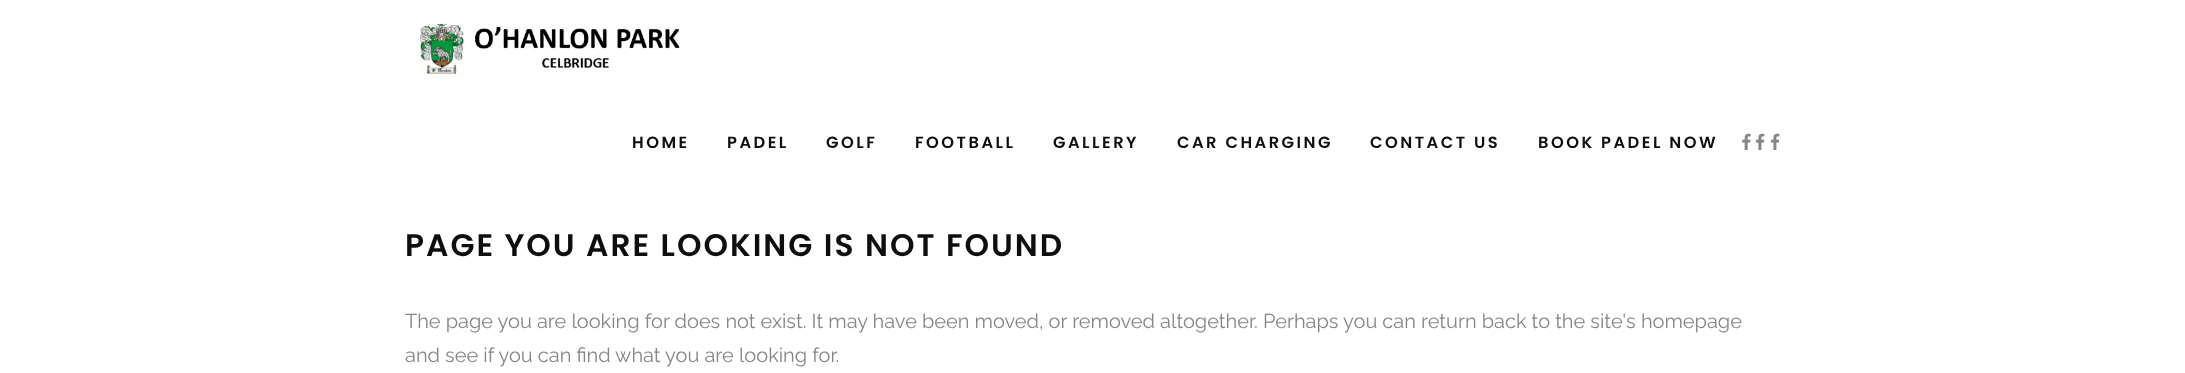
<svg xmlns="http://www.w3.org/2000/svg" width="2185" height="373">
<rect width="100%" height="100%" fill="#fff"/>
<image x="419" y="23" width="261" height="52" href="media/1.png"/>
<text x="632" y="148" style="font-family:Poppins;font-size:16.25px;font-weight:600;letter-spacing:2.5px;fill:#0e0e0e">HOME</text>
<text x="727" y="148" style="font-family:Poppins;font-size:16.25px;font-weight:600;letter-spacing:2.5px;fill:#0e0e0e">PADEL</text>
<text x="826" y="148" style="font-family:Poppins;font-size:16.25px;font-weight:600;letter-spacing:2.5px;fill:#0e0e0e">GOLF</text>
<text x="915" y="148" style="font-family:Poppins;font-size:16.25px;font-weight:600;letter-spacing:2.5px;fill:#0e0e0e">FOOTBALL</text>
<text x="1053" y="148" style="font-family:Poppins;font-size:16.25px;font-weight:600;letter-spacing:2.5px;fill:#0e0e0e">GALLERY</text>
<text x="1177" y="148" style="font-family:Poppins;font-size:16.25px;font-weight:600;letter-spacing:2.5px;fill:#0e0e0e">CAR CHARGING</text>
<text x="1370" y="148" style="font-family:Poppins;font-size:16.25px;font-weight:600;letter-spacing:2.5px;fill:#0e0e0e">CONTACT US</text>
<text x="1538" y="148" style="font-family:Poppins;font-size:16.25px;font-weight:600;letter-spacing:2.5px;fill:#0e0e0e">BOOK PADEL NOW</text>
<image x="1742" y="133" width="9" height="17" href="media/2.png"/>
<image x="1755" y="133" width="10" height="17" href="media/3.png"/>
<image x="1770" y="133" width="10" height="17" href="media/3.png"/>
<text x="405" y="256" style="font-family:Poppins;font-size:31.25px;font-weight:600;letter-spacing:2px;fill:#0e0e0e">PAGE YOU ARE LOOKING IS NOT FOUND</text>
<text x="405" y="328" style="font-family:Raleway;font-size:20px;fill:#868686">The page you are looking for does not exist. It may have been moved, or removed altogether. Perhaps you can return back to the site's homepage</text>
<text x="405" y="362" style="font-family:Raleway;font-size:20px;fill:#868686">and see if you can find what you are looking for.</text>
</svg>
